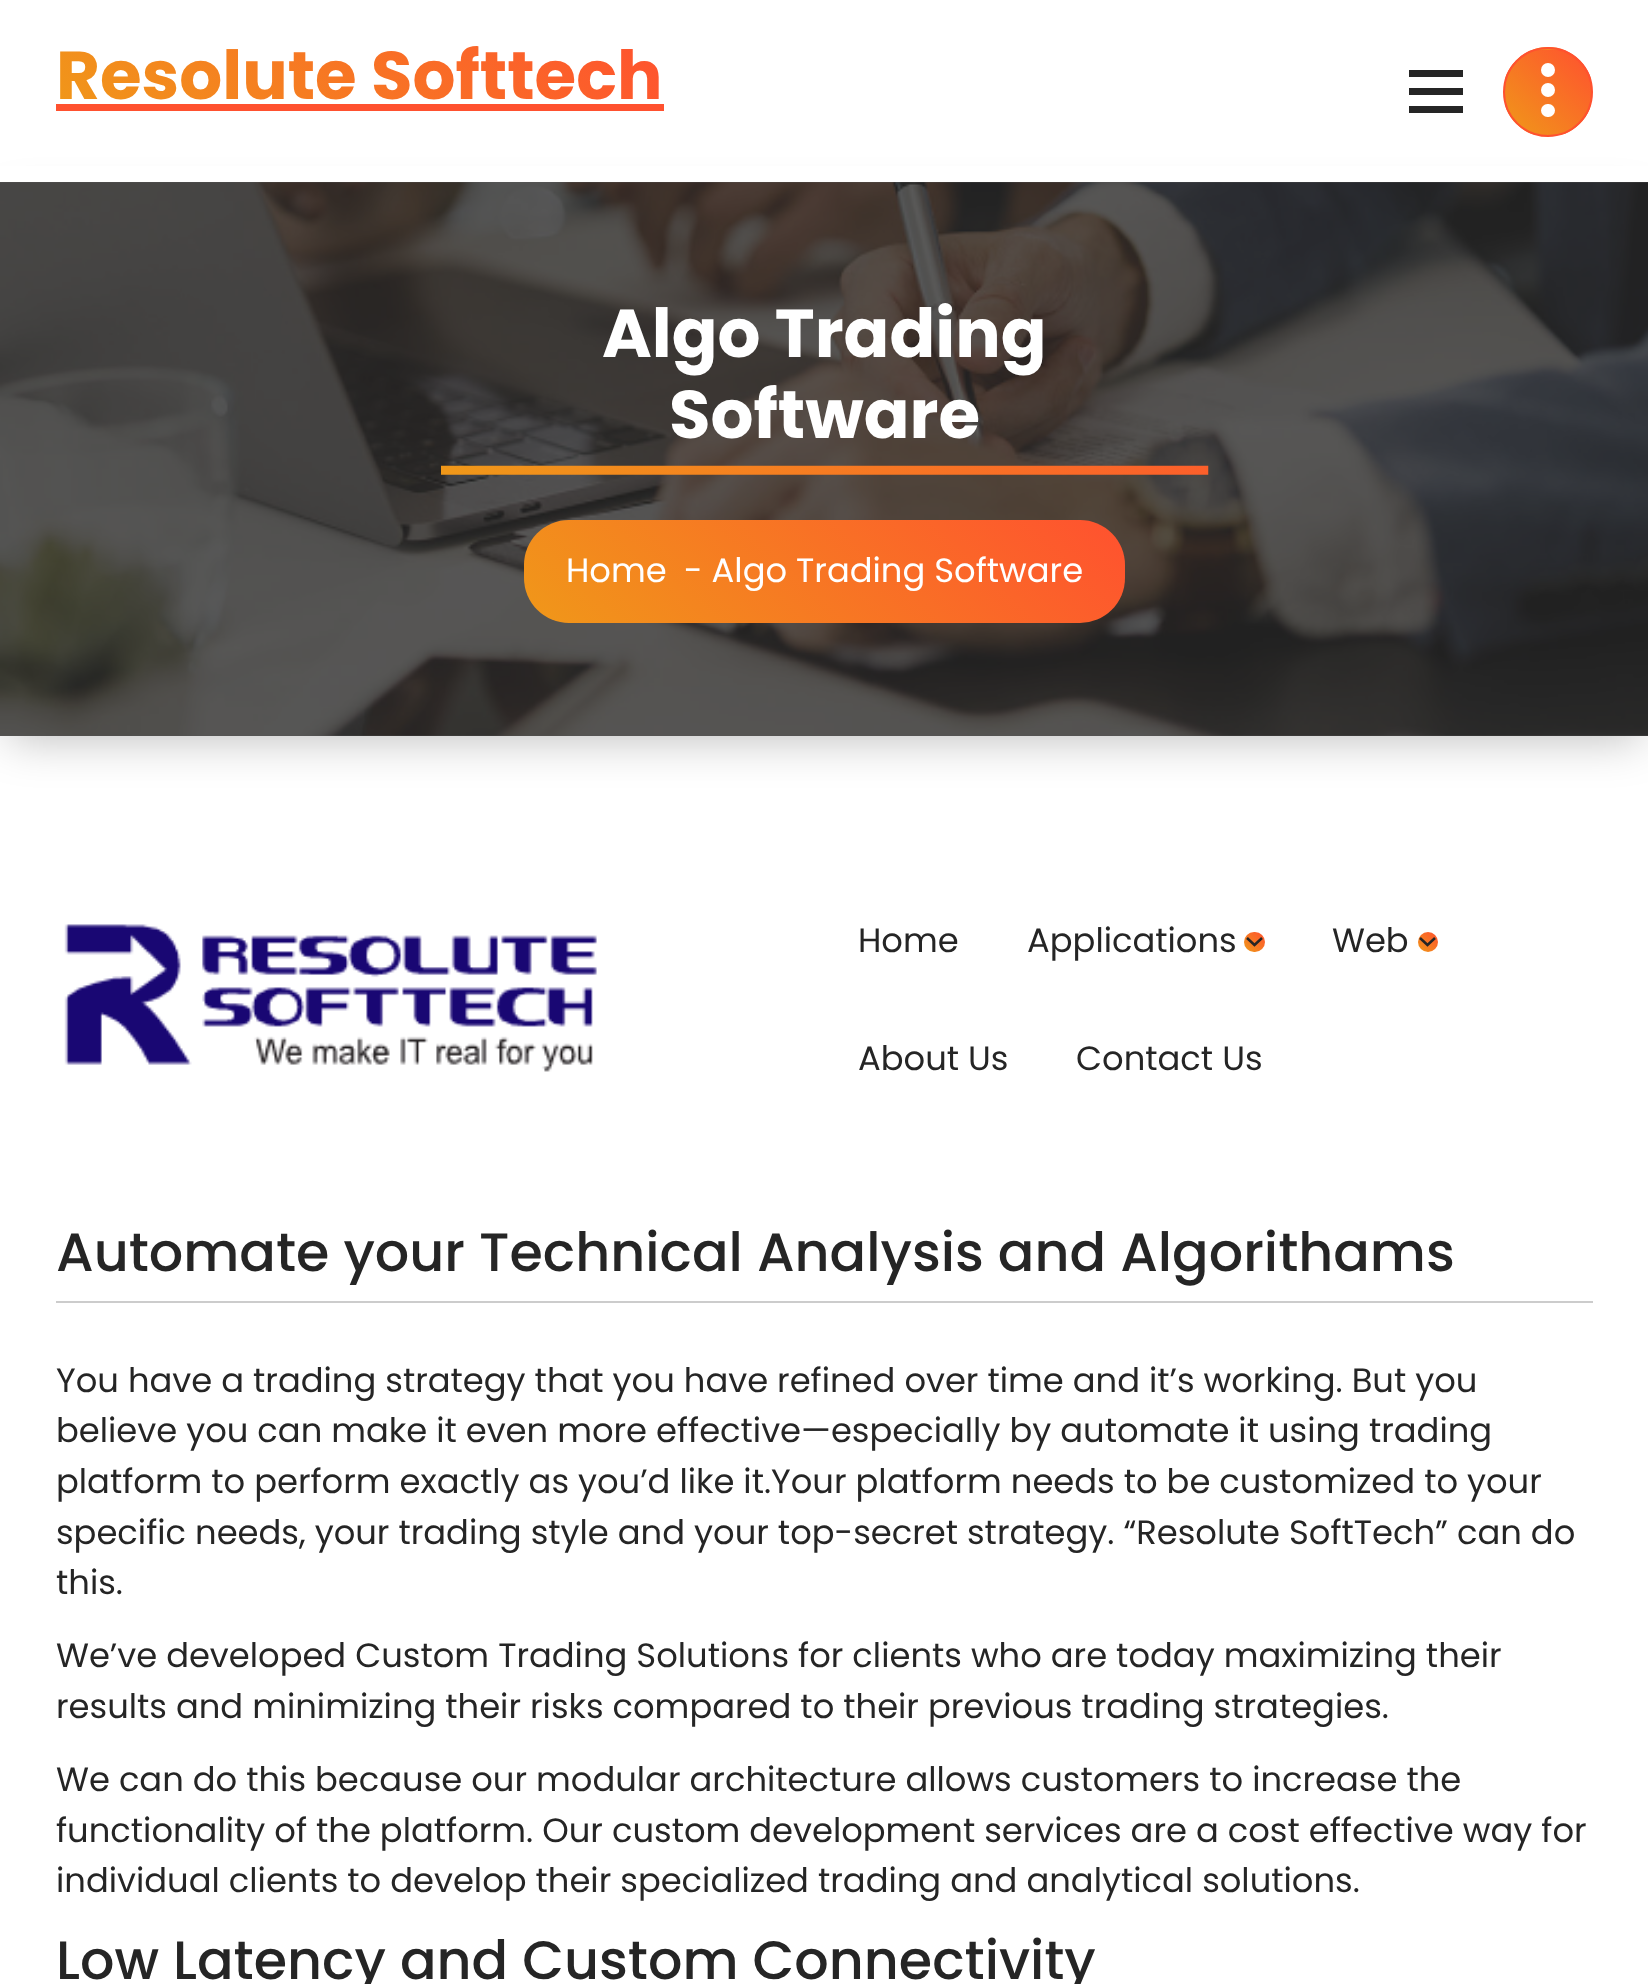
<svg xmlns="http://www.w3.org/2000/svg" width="1648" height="1984">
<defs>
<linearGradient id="g1" gradientUnits="userSpaceOnUse" x1="521" y1="-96" x2="198" y2="249"><stop offset="0" stop-color="#ff512f"/><stop offset="1" stop-color="#f09819"/></linearGradient>
<clipPath id="clip1"><rect x="1503" y="47" width="90" height="90" rx="45"/></clipPath>
<linearGradient id="g2" gradientUnits="userSpaceOnUse" x1="1589" y1="-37" x2="1507" y2="51"><stop offset="0" stop-color="#ff512f"/><stop offset="1" stop-color="#f09819"/></linearGradient>
<linearGradient id="g3" gradientUnits="userSpaceOnUse" x1="1589" y1="48" x2="1507" y2="136"><stop offset="0" stop-color="#ff512f"/><stop offset="1" stop-color="#f09819"/></linearGradient>
<linearGradient id="g4" gradientUnits="userSpaceOnUse" x1="990" y1="394" x2="659" y2="749"><stop offset="0" stop-color="#ff512f"/><stop offset="1" stop-color="#f09819"/></linearGradient>
<linearGradient id="g5" gradientUnits="userSpaceOnUse" x1="1264" y1="931" x2="1245" y2="952"><stop offset="0" stop-color="#ff512f"/><stop offset="1" stop-color="#f09819"/></linearGradient>
<linearGradient id="g6" gradientUnits="userSpaceOnUse" x1="1437" y1="931" x2="1418" y2="952"><stop offset="0" stop-color="#ff512f"/><stop offset="1" stop-color="#f09819"/></linearGradient>
</defs>
<rect width="100%" height="100%" fill="#fff"/>
<rect x="9" y="205" width="1631" height="535" fill="#00000040" filter="blur(22.5px)"/>
<rect y="166" width="1648" height="16" fill="#fff"/>
<text x="56" y="99" style="font-family:Poppins;font-size:67.5px;font-weight:bold;fill:url(#g1)">Resolute Softtech</text>
<rect x="56" y="104" width="608" height="7" fill="#ff512f"/>
<rect x="1409" y="70" width="54" height="7" fill="#252525"/>
<rect x="1409" y="88" width="54" height="7" fill="#252525"/>
<rect x="1409" y="106" width="54" height="7" fill="#252525"/>
<g clip-path="url(#clip1)">
<rect x="1532" y="47" width="32" height="3" fill="url(#g2)"/>
<rect x="1505" y="50" width="86" height="85" fill="url(#g3)"/>
</g>
<circle cx="1548" cy="92" r="44" fill="none" stroke="#ff512f" stroke-width="2"/>
<circle cx="1548" cy="90" r="7" fill="#fff"/>
<circle cx="1548" cy="70" r="7" fill="#fff"/>
<rect x="1541" y="104" width="14" height="13" rx="6.5" fill="#fff"/>
<image x="0" y="182" width="1648" height="554" href="media/1.png"/>
<rect y="182" width="1648" height="554" fill="#252525bf"/>
<image x="441" y="465" width="768" height="10" href="media/2.png"/>
<text x="602" y="357" style="font-family:Poppins;font-size:67.5px;font-weight:bold;fill:#fff">Algo Trading</text>
<text x="669" y="438" style="font-family:Poppins;font-size:67.5px;font-weight:bold;fill:#fff">Software</text>
<rect x="524" y="520" width="601" height="103" rx="45" fill="url(#g4)"/>
<text x="566" y="582" style="font-family:Poppins;font-size:33.75px;fill:#fff">Home</text>
<text x="684" y="582" style="font-family:Poppins;font-size:33.75px;fill:#fff">- Algo Trading Software</text>
<image x="64" y="924" width="533" height="148" href="media/3.png"/>
<text x="858" y="952" style="font-family:Poppins;font-size:33.75px;fill:#252525">Home</text>
<text x="1027" y="952" style="font-family:Poppins;font-size:33.75px;fill:#252525">Applications</text>
<rect x="1244" y="932" width="21" height="20" rx="10" fill="url(#g5)"/>
<path d="M1247 938l7.5 7l7.5-7" fill="none" stroke="#252525" stroke-width="2.5"/>
<text x="1332" y="952" style="font-family:Poppins;font-size:33.75px;fill:#252525">Web</text>
<circle cx="1428" cy="942" r="10" fill="url(#g6)"/>
<path d="M1420 938l7.5 7l7.5-7" fill="none" stroke="#252525" stroke-width="2.5"/>
<text x="858" y="1070" style="font-family:Poppins;font-size:33.75px;fill:#252525">About Us</text>
<text x="1076" y="1070" style="font-family:Poppins;font-size:33.75px;fill:#252525">Contact Us</text>
<rect x="56" y="1301" width="1537" height="2" fill="#ccc"/>
<text x="56" y="1271" style="font-family:Poppins;font-size:54px;font-weight:500;fill:#252525">Automate your Technical Analysis and Algorithams</text>
<text x="56" y="1392" style="font-family:Poppins;font-size:33.75px;fill:#252525">You have a trading strategy that you have refined over time and it’s working. But you</text>
<text x="56" y="1442" style="font-family:Poppins;font-size:33.75px;fill:#252525">believe you can make it even more effective—especially by automate it using trading</text>
<text x="56" y="1493" style="font-family:Poppins;font-size:33.75px;fill:#252525">platform to perform exactly as you’d like it.Your platform needs to be customized to your</text>
<text x="56" y="1544" style="font-family:Poppins;font-size:33.75px;fill:#252525">specific needs, your trading style and your top-secret strategy. “Resolute SoftTech” can do</text>
<text x="56" y="1594" style="font-family:Poppins;font-size:33.75px;fill:#252525">this.</text>
<text x="56" y="1667" style="font-family:Poppins;font-size:33.75px;fill:#252525">We’ve developed Custom Trading Solutions for clients who are today maximizing their</text>
<text x="56" y="1718" style="font-family:Poppins;font-size:33.75px;fill:#252525">results and minimizing their risks compared to their previous trading strategies.</text>
<text x="56" y="1791" style="font-family:Poppins;font-size:33.75px;fill:#252525">We can do this because our modular architecture allows customers to increase the</text>
<text x="56" y="1842" style="font-family:Poppins;font-size:33.75px;fill:#252525">functionality of the platform. Our custom development services are a cost effective way for</text>
<text x="56" y="1892" style="font-family:Poppins;font-size:33.75px;fill:#252525">individual clients to develop their specialized trading and analytical solutions.</text>
<text x="56" y="1979" style="font-family:Poppins;font-size:54px;font-weight:500;fill:#252525">Low Latency and Custom Connectivity</text>
</svg>
